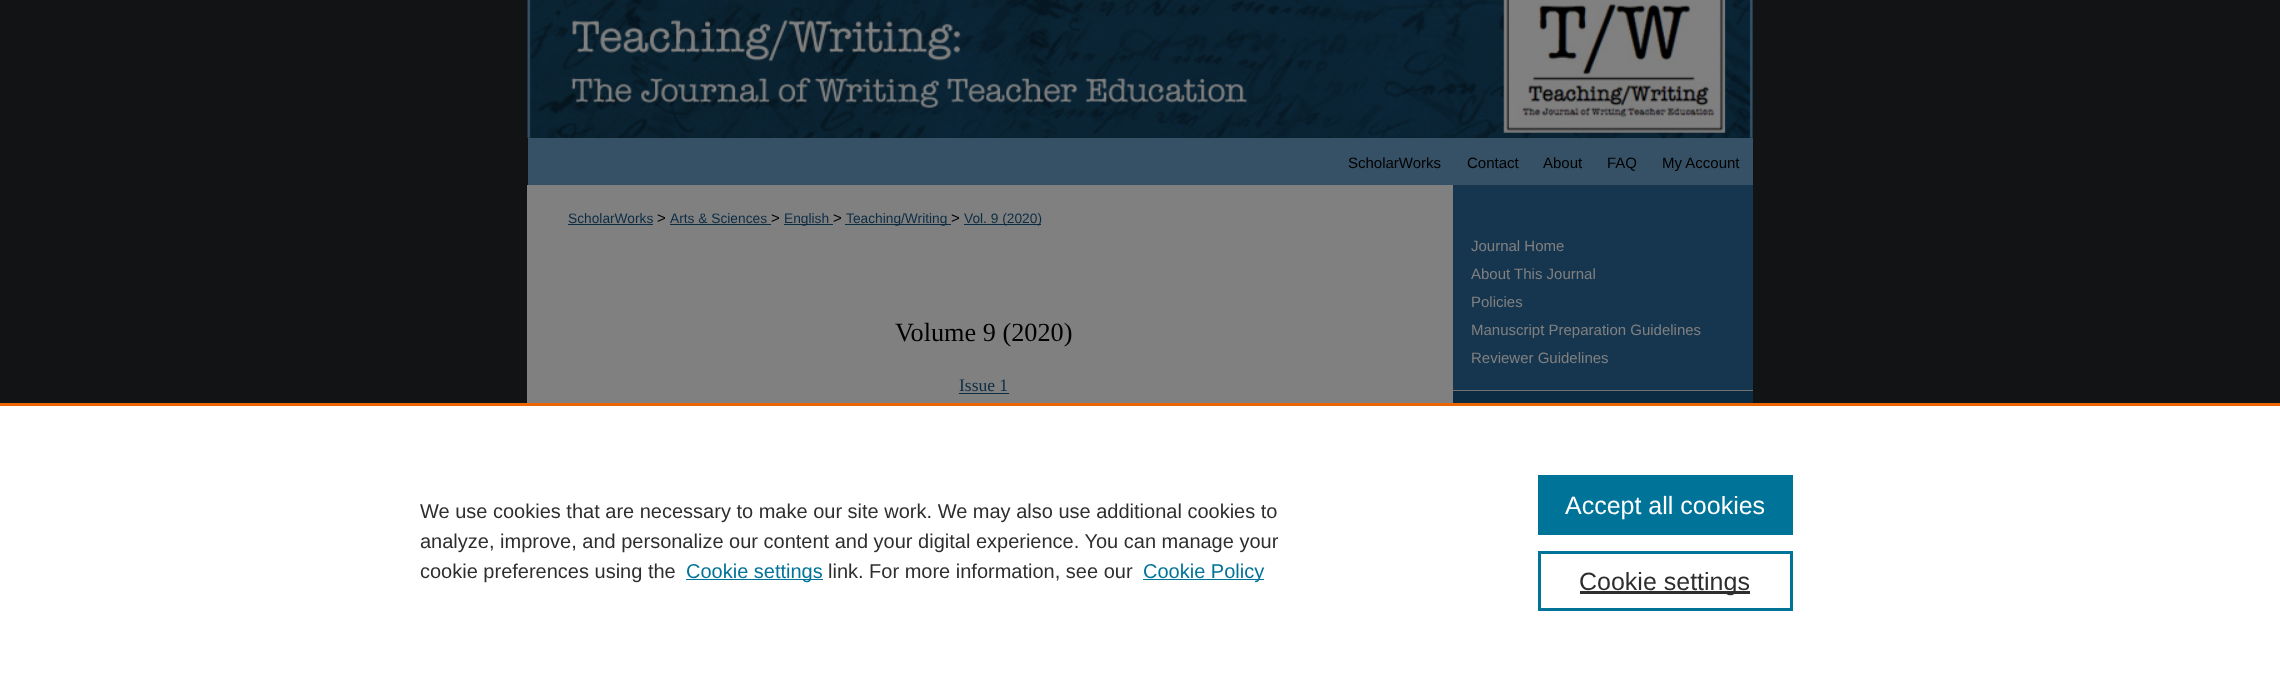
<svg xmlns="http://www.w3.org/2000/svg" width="2280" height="677">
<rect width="100%" height="100%" fill="#111315"/>
<rect x="528" width="1225" height="138" fill="#0a2536"/>
<image x="527" y="0" width="1226" height="138" href="media/1.png"/>
<rect x="528" y="138" width="1225" height="47" fill="#365165"/>
<text x="1348" y="168" style="font-family:Liberation Sans;font-size:15px;fill:#000">ScholarWorks</text>
<text x="1467" y="168" style="font-family:Liberation Sans;font-size:15px;fill:#000">Contact</text>
<text x="1543" y="168" style="font-family:Liberation Sans;font-size:15px;fill:#000">About</text>
<text x="1607" y="168" style="font-family:Liberation Sans;font-size:15px;fill:#000">FAQ</text>
<text x="1662" y="168" style="font-family:Liberation Sans;font-size:15px;fill:#000">My Account</text>
<rect x="1453" y="185" width="300" height="205" fill="#16364f"/>
<rect x="527" y="185" width="926" height="218" fill="#808080"/>
<text x="568" y="223" style="font-family:Liberation Sans;font-size:13.75px;fill:#0c2c44">ScholarWorks</text>
<rect x="568" y="224" width="85" height="1" fill="#0c2c44"/>
<text x="657" y="223" style="font-family:Liberation Sans;font-size:15px;fill:#000">&gt;</text>
<text x="670" y="223" style="font-family:Liberation Sans;font-size:13.75px;fill:#0c2c44">Arts &amp; Sciences</text>
<rect x="670" y="224" width="101" height="1" fill="#0c2c44"/>
<text x="771" y="223" style="font-family:Liberation Sans;font-size:15px;fill:#000">&gt;</text>
<rect x="784" y="224" width="49" height="1" fill="#0c2c44"/>
<text x="784" y="223" style="font-family:Liberation Sans;font-size:13.75px;fill:#0c2c44">English</text>
<text x="833" y="223" style="font-family:Liberation Sans;font-size:15px;fill:#000">&gt;</text>
<rect x="845" y="224" width="106" height="1" fill="#0c2c44"/>
<text x="846" y="223" style="font-family:Liberation Sans;font-size:13.75px;fill:#0c2c44">Teaching/Writing</text>
<text x="951" y="223" style="font-family:Liberation Sans;font-size:15px;fill:#000">&gt;</text>
<rect x="964" y="224" width="77" height="1" fill="#0c2c44"/>
<text x="964" y="223" style="font-family:Liberation Sans;font-size:13.75px;fill:#0c2c44">Vol. 9 (2020)</text>
<text x="895" y="341" style="font-family:Liberation Serif;font-size:26.25px;fill:#000">Volume 9 (2020)</text>
<text x="959" y="391" style="font-family:Liberation Serif;font-size:17.5px;fill:#0c2c44">Issue 1</text>
<rect x="959" y="393" width="50" height="1" fill="#0c2c44"/>
<text x="1471" y="251" style="font-family:Liberation Sans;font-size:15px;fill:#808080">Journal Home</text>
<text x="1471" y="279" style="font-family:Liberation Sans;font-size:15px;fill:#808080">About This Journal</text>
<text x="1471" y="307" style="font-family:Liberation Sans;font-size:15px;fill:#808080">Policies</text>
<text x="1471" y="335" style="font-family:Liberation Sans;font-size:15px;fill:#808080">Manuscript Preparation Guidelines</text>
<text x="1471" y="363" style="font-family:Liberation Sans;font-size:15px;fill:#808080">Reviewer Guidelines</text>
<rect x="1453" y="390" width="300" height="1" fill="#727272"/>
<rect x="1453" y="391" width="300" height="12" fill="#0c2c44"/>
<rect y="406" width="2280" height="271" fill="#fff"/>
<rect y="403" width="2280" height="3" fill="#eb6500"/>
<text x="420" y="518" style="font-family:Liberation Sans;font-size:20px;fill:#2e2e2e">We use cookies that are necessary to make our site work. We may also use additional cookies to</text>
<text x="420" y="548" style="font-family:Liberation Sans;font-size:20px;fill:#2e2e2e">analyze, improve, and personalize our content and your digital experience. You can manage your</text>
<text x="420" y="578" style="font-family:Liberation Sans;font-size:20px;fill:#2e2e2e">cookie preferences using the</text>
<rect x="686" y="579" width="137" height="1" fill="#007398"/>
<text x="686" y="578" style="font-family:Liberation Sans;font-size:20px;fill:#007398">Cookie settings</text>
<text x="828" y="578" style="font-family:Liberation Sans;font-size:20px;fill:#2e2e2e">link. For more information, see our</text>
<rect x="1143" y="579" width="121" height="1" fill="#007398"/>
<text x="1143" y="578" style="font-family:Liberation Sans;font-size:20px;fill:#007398">Cookie Policy</text>
<rect x="1538" y="475" width="255" height="60" fill="#007398"/>
<text x="1565" y="514" style="font-family:Liberation Sans;font-size:25px;fill:#fff">Accept all cookies</text>
<rect x="1539.5" y="552.5" width="252" height="57" fill="none" stroke="#007398" stroke-width="3"/>
<rect x="1580" y="591" width="170" height="3" fill="#2e2e2e"/>
<text x="1579" y="590" style="font-family:Liberation Sans;font-size:25px;fill:#2e2e2e">Cookie settings</text>
</svg>
